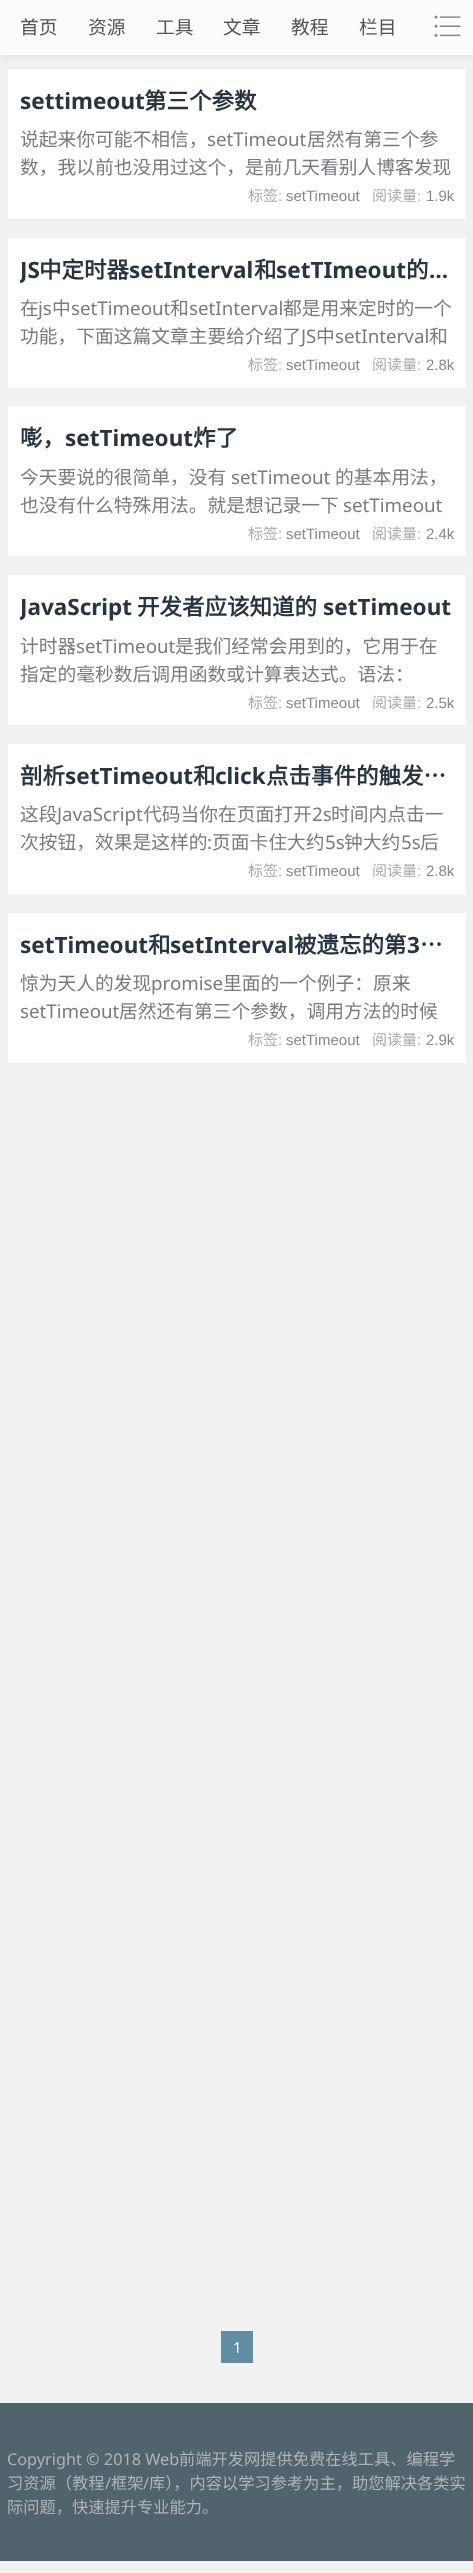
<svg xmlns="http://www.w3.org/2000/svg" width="473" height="2573">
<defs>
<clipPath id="clip1"><rect x="20" y="250" width="434" height="38"/></clipPath>
<clipPath id="clip2"><rect x="20" y="588" width="434" height="37"/></clipPath>
</defs>
<rect width="100%" height="100%" fill="#f1f1f1"/>
<rect y="3" width="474" height="55" fill="#0000000d" filter="blur(2.5px)"/>
<rect width="473" height="55" fill="#fbfbfb"/>
<text x="20" y="34" style="font-family:Noto Sans CJK SC;font-size:18.75px;fill:#555">首页</text>
<text x="88" y="34" style="font-family:Noto Sans CJK SC;font-size:18.75px;fill:#555">资源</text>
<text x="156" y="34" style="font-family:Noto Sans CJK SC;font-size:18.75px;fill:#555">工具</text>
<text x="223" y="34" style="font-family:Noto Sans CJK SC;font-size:18.75px;fill:#555">文章</text>
<text x="291" y="34" style="font-family:Noto Sans CJK SC;font-size:18.75px;fill:#555">教程</text>
<text x="359" y="34" style="font-family:Noto Sans CJK SC;font-size:18.75px;fill:#555">栏目</text>
<image x="434" y="15" width="27" height="22" href="media/1.png"/>
<rect x="8" y="69" width="458" height="150" fill="#fff"/>
<text x="20" y="109" style="font-family:Noto Sans;font-size:22.5px;font-weight:bold;fill:#273442">settimeout</text>
<text x="144" y="109" style="font-family:Noto Sans CJK SC;font-size:22.5px;font-weight:bold;fill:#273442">第三个参数</text>
<text x="20" y="146" style="font-family:Noto Sans CJK SC;font-size:18.75px;fill:#787c80">说起来你可能不相信，</text>
<text x="207" y="146" style="font-family:Noto Sans;font-size:18.75px;fill:#787c80">setTimeout</text>
<text x="307" y="146" style="font-family:Noto Sans CJK SC;font-size:18.75px;fill:#787c80">居然有第三个参</text>
<text x="20" y="174" style="font-family:Noto Sans CJK SC;font-size:18.75px;fill:#787c80">数，我以前也没用过这个，是前几天看别人博客发现</text>
<text x="248" y="201" style="font-family:Noto Sans CJK SC;font-size:15px;fill:#ababab">标签</text>
<text x="278" y="201" style="font-family:Liberation Sans;font-size:15px;fill:#ababab">:</text>
<text x="286" y="201" style="font-family:Liberation Sans;font-size:15px;fill:#858a84">setTimeout</text>
<text x="372" y="201" style="font-family:Noto Sans CJK SC;font-size:15px;fill:#ababab">阅读量</text>
<text x="417" y="201" style="font-family:Liberation Sans;font-size:15px;fill:#ababab">:</text>
<text x="426" y="201" style="font-family:Liberation Sans;font-size:15px;fill:#858a84">1.9k</text>
<rect x="8" y="238" width="458" height="150" fill="#fff"/>
<g clip-path="url(#clip1)">
<text x="20" y="278" style="font-family:Noto Sans;font-size:22.5px;font-weight:bold;fill:#273442">JS</text>
</g>
<text x="39" y="278" style="font-family:Noto Sans CJK SC;font-size:22.5px;font-weight:bold;fill:#273442">中定时器</text>
<text x="129" y="278" style="font-family:Noto Sans;font-size:22.5px;font-weight:bold;fill:#273442">setInterval</text>
<text x="254" y="278" style="font-family:Noto Sans CJK SC;font-size:22.5px;font-weight:bold;fill:#273442">和</text>
<text x="276" y="278" style="font-family:Noto Sans;font-size:22.5px;font-weight:bold;fill:#273442">setTImeout</text>
<text x="406" y="278" style="font-family:Noto Sans CJK SC;font-size:22.5px;font-weight:bold;fill:#273442">的</text>
<text x="429" y="278" style="font-family:Noto Sans;font-size:22.5px;font-weight:bold;fill:#273442">…</text>
<text x="20" y="315" style="font-family:Noto Sans CJK SC;font-size:18.75px;fill:#787c80">在</text>
<text x="38" y="315" style="font-family:Noto Sans;font-size:18.75px;fill:#787c80">js</text>
<text x="52" y="315" style="font-family:Noto Sans CJK SC;font-size:18.75px;fill:#787c80">中</text>
<text x="71" y="315" style="font-family:Noto Sans;font-size:18.75px;fill:#787c80">setTimeout</text>
<text x="170" y="315" style="font-family:Noto Sans CJK SC;font-size:18.75px;fill:#787c80">和</text>
<text x="189" y="315" style="font-family:Noto Sans;font-size:18.75px;fill:#787c80">setInterval</text>
<text x="283" y="315" style="font-family:Noto Sans CJK SC;font-size:18.75px;fill:#787c80">都是用来定时的一个</text>
<text x="20" y="343" style="font-family:Noto Sans CJK SC;font-size:18.75px;fill:#787c80">功能，下面这篇文章主要给介绍了</text>
<text x="301" y="343" style="font-family:Noto Sans;font-size:18.75px;fill:#787c80">JS</text>
<text x="316" y="343" style="font-family:Noto Sans CJK SC;font-size:18.75px;fill:#787c80">中</text>
<text x="335" y="343" style="font-family:Noto Sans;font-size:18.75px;fill:#787c80">setInterval</text>
<text x="429" y="343" style="font-family:Noto Sans CJK SC;font-size:18.75px;fill:#787c80">和</text>
<text x="248" y="370" style="font-family:Noto Sans CJK SC;font-size:15px;fill:#ababab">标签</text>
<text x="278" y="370" style="font-family:Liberation Sans;font-size:15px;fill:#ababab">:</text>
<text x="286" y="370" style="font-family:Liberation Sans;font-size:15px;fill:#858a84">setTimeout</text>
<text x="372" y="370" style="font-family:Noto Sans CJK SC;font-size:15px;fill:#ababab">阅读量</text>
<text x="417" y="370" style="font-family:Liberation Sans;font-size:15px;fill:#ababab">:</text>
<text x="426" y="370" style="font-family:Liberation Sans;font-size:15px;fill:#858a84">2.8k</text>
<rect x="8" y="406" width="458" height="150" fill="#fff"/>
<text x="20" y="446" style="font-family:Noto Sans CJK SC;font-size:22.5px;font-weight:bold;fill:#273442">嘭，</text>
<text x="65" y="446" style="font-family:Noto Sans;font-size:22.5px;font-weight:bold;fill:#273442">setTimeout</text>
<text x="193" y="446" style="font-family:Noto Sans CJK SC;font-size:22.5px;font-weight:bold;fill:#273442">炸了</text>
<text x="20" y="484" style="font-family:Noto Sans CJK SC;font-size:18.75px;fill:#787c80">今天要说的很简单，没有</text>
<text x="231" y="484" style="font-family:Noto Sans;font-size:18.75px;fill:#787c80">setTimeout</text>
<text x="335" y="484" style="font-family:Noto Sans CJK SC;font-size:18.75px;fill:#787c80">的基本用法，</text>
<text x="20" y="512" style="font-family:Noto Sans CJK SC;font-size:18.75px;fill:#787c80">也没有什么特殊用法。就是想记录一下</text>
<text x="343" y="512" style="font-family:Noto Sans;font-size:18.75px;fill:#787c80">setTimeout</text>
<text x="248" y="539" style="font-family:Noto Sans CJK SC;font-size:15px;fill:#ababab">标签</text>
<text x="278" y="539" style="font-family:Liberation Sans;font-size:15px;fill:#ababab">:</text>
<text x="286" y="539" style="font-family:Liberation Sans;font-size:15px;fill:#858a84">setTimeout</text>
<text x="372" y="539" style="font-family:Noto Sans CJK SC;font-size:15px;fill:#ababab">阅读量</text>
<text x="417" y="539" style="font-family:Liberation Sans;font-size:15px;fill:#ababab">:</text>
<text x="426" y="539" style="font-family:Liberation Sans;font-size:15px;fill:#858a84">2.4k</text>
<rect x="8" y="575" width="458" height="150" fill="#fff"/>
<g clip-path="url(#clip2)">
<text x="20" y="615" style="font-family:Noto Sans;font-size:22.5px;font-weight:bold;fill:#273442">JavaScript</text>
</g>
<text x="137" y="615" style="font-family:Noto Sans CJK SC;font-size:22.5px;font-weight:bold;fill:#273442">开发者应该知道的</text>
<text x="323" y="615" style="font-family:Noto Sans;font-size:22.5px;font-weight:bold;fill:#273442">setTimeout</text>
<text x="20" y="653" style="font-family:Noto Sans CJK SC;font-size:18.75px;fill:#787c80">计时器</text>
<text x="76" y="653" style="font-family:Noto Sans;font-size:18.75px;fill:#787c80">setTimeout</text>
<text x="175" y="653" style="font-family:Noto Sans CJK SC;font-size:18.75px;fill:#787c80">是我们经常会用到的，它用于在</text>
<text x="20" y="681" style="font-family:Noto Sans CJK SC;font-size:18.75px;fill:#787c80">指定的毫秒数后调用函数或计算表达式。语法：</text>
<text x="248" y="708" style="font-family:Noto Sans CJK SC;font-size:15px;fill:#ababab">标签</text>
<text x="278" y="708" style="font-family:Liberation Sans;font-size:15px;fill:#ababab">:</text>
<text x="286" y="708" style="font-family:Liberation Sans;font-size:15px;fill:#858a84">setTimeout</text>
<text x="372" y="708" style="font-family:Noto Sans CJK SC;font-size:15px;fill:#ababab">阅读量</text>
<text x="417" y="708" style="font-family:Liberation Sans;font-size:15px;fill:#ababab">:</text>
<text x="426" y="708" style="font-family:Liberation Sans;font-size:15px;fill:#858a84">2.5k</text>
<rect x="8" y="744" width="458" height="150" fill="#fff"/>
<text x="20" y="784" style="font-family:Noto Sans CJK SC;font-size:22.5px;font-weight:bold;fill:#273442">剖析</text>
<text x="65" y="784" style="font-family:Noto Sans;font-size:22.5px;font-weight:bold;fill:#273442">setTimeout</text>
<text x="193" y="784" style="font-family:Noto Sans CJK SC;font-size:22.5px;font-weight:bold;fill:#273442">和</text>
<text x="215" y="784" style="font-family:Noto Sans;font-size:22.5px;font-weight:bold;fill:#273442">click</text>
<text x="266" y="784" style="font-family:Noto Sans CJK SC;font-size:22.5px;font-weight:bold;fill:#273442">点击事件的触发…</text>
<text x="20" y="821" style="font-family:Noto Sans CJK SC;font-size:18.75px;fill:#787c80">这段</text>
<text x="57" y="821" style="font-family:Noto Sans;font-size:18.75px;fill:#787c80">JavaScript</text>
<text x="143" y="821" style="font-family:Noto Sans CJK SC;font-size:18.75px;fill:#787c80">代码当你在页面打开</text>
<text x="312" y="821" style="font-family:Noto Sans;font-size:18.75px;fill:#787c80">2s</text>
<text x="331" y="821" style="font-family:Noto Sans CJK SC;font-size:18.75px;fill:#787c80">时间内点击一</text>
<text x="20" y="849" style="font-family:Noto Sans CJK SC;font-size:18.75px;fill:#787c80">次按钮，效果是这样的</text>
<text x="207" y="849" style="font-family:Noto Sans;font-size:18.75px;fill:#787c80">:</text>
<text x="212" y="849" style="font-family:Noto Sans CJK SC;font-size:18.75px;fill:#787c80">页面卡住大约</text>
<text x="325" y="849" style="font-family:Noto Sans;font-size:18.75px;fill:#787c80">5s</text>
<text x="344" y="849" style="font-family:Noto Sans CJK SC;font-size:18.75px;fill:#787c80">钟大约</text>
<text x="401" y="849" style="font-family:Noto Sans;font-size:18.75px;fill:#787c80">5s</text>
<text x="420" y="849" style="font-family:Noto Sans CJK SC;font-size:18.75px;fill:#787c80">后</text>
<text x="248" y="876" style="font-family:Noto Sans CJK SC;font-size:15px;fill:#ababab">标签</text>
<text x="278" y="876" style="font-family:Liberation Sans;font-size:15px;fill:#ababab">:</text>
<text x="286" y="876" style="font-family:Liberation Sans;font-size:15px;fill:#858a84">setTimeout</text>
<text x="372" y="876" style="font-family:Noto Sans CJK SC;font-size:15px;fill:#ababab">阅读量</text>
<text x="417" y="876" style="font-family:Liberation Sans;font-size:15px;fill:#ababab">:</text>
<text x="426" y="876" style="font-family:Liberation Sans;font-size:15px;fill:#858a84">2.8k</text>
<rect x="8" y="913" width="458" height="150" fill="#fff"/>
<text x="20" y="953" style="font-family:Noto Sans;font-size:22.5px;font-weight:bold;fill:#273442">setTimeout</text>
<text x="148" y="953" style="font-family:Noto Sans CJK SC;font-size:22.5px;font-weight:bold;fill:#273442">和</text>
<text x="170" y="953" style="font-family:Noto Sans;font-size:22.5px;font-weight:bold;fill:#273442">setInterval</text>
<text x="294" y="953" style="font-family:Noto Sans CJK SC;font-size:22.5px;font-weight:bold;fill:#273442">被遗忘的第</text>
<text x="407" y="953" style="font-family:Noto Sans;font-size:22.5px;font-weight:bold;fill:#273442">3</text>
<text x="420" y="953" style="font-family:Noto Sans CJK SC;font-size:22.5px;font-weight:bold;fill:#273442">…</text>
<text x="20" y="990" style="font-family:Noto Sans CJK SC;font-size:18.75px;fill:#787c80">惊为天人的发现</text>
<text x="151" y="990" style="font-family:Noto Sans;font-size:18.75px;fill:#787c80">promise</text>
<text x="223" y="990" style="font-family:Noto Sans CJK SC;font-size:18.75px;fill:#787c80">里面的一个例子：原来</text>
<text x="20" y="1018" style="font-family:Noto Sans;font-size:18.75px;fill:#787c80">setTimeout</text>
<text x="119" y="1018" style="font-family:Noto Sans CJK SC;font-size:18.75px;fill:#787c80">居然还有第三个参数，调用方法的时候</text>
<text x="248" y="1045" style="font-family:Noto Sans CJK SC;font-size:15px;fill:#ababab">标签</text>
<text x="278" y="1045" style="font-family:Liberation Sans;font-size:15px;fill:#ababab">:</text>
<text x="286" y="1045" style="font-family:Liberation Sans;font-size:15px;fill:#858a84">setTimeout</text>
<text x="372" y="1045" style="font-family:Noto Sans CJK SC;font-size:15px;fill:#ababab">阅读量</text>
<text x="417" y="1045" style="font-family:Liberation Sans;font-size:15px;fill:#ababab">:</text>
<text x="426" y="1045" style="font-family:Liberation Sans;font-size:15px;fill:#858a84">2.9k</text>
<rect x="221" y="2331" width="32" height="32" fill="#608ea5"/>
<text x="233" y="2353" style="font-family:Noto Sans;font-size:15px;fill:#fff">1</text>
<rect y="2403" width="473" height="158" fill="#51636c"/>
<text x="7" y="2465" style="font-family:Noto Sans;font-size:16.25px;fill:#aeb5b5">Copyright © 2018 Web</text>
<text x="179" y="2465" style="font-family:Noto Sans CJK SC;font-size:16.25px;fill:#aeb5b5">前端开发网提供免费在线工具、编程学</text>
<text x="7" y="2489" style="font-family:Noto Sans CJK SC;font-size:16.25px;fill:#aeb5b5">习资源（教程</text>
<text x="105" y="2489" style="font-family:Noto Sans;font-size:16.25px;fill:#aeb5b5">/</text>
<text x="111" y="2489" style="font-family:Noto Sans CJK SC;font-size:16.25px;fill:#aeb5b5">框架</text>
<text x="143" y="2489" style="font-family:Noto Sans;font-size:16.25px;fill:#aeb5b5">/</text>
<text x="149" y="2489" style="font-family:Noto Sans CJK SC;font-size:16.25px;fill:#aeb5b5">库），内容以学习参考为主，助您解决各类实</text>
<text x="7" y="2513" style="font-family:Noto Sans CJK SC;font-size:16.25px;fill:#aeb5b5">际问题，快速提升专业能力。</text>
</svg>
